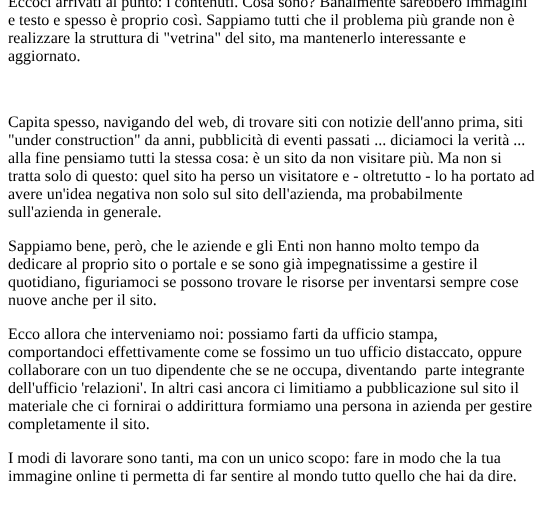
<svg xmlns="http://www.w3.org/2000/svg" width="544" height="506">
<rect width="100%" height="100%" fill="#fff"/>
<text x="8" y="7" style="font-family:Liberation Serif;font-size:16px;fill:#000">Eccoci arrivati al punto: i contenuti. Cosa sono? Banalmente sarebbero immagini</text>
<text x="8" y="25" style="font-family:Liberation Serif;font-size:16px;fill:#000">e testo e spesso è proprio così. Sappiamo tutti che il problema più grande non è</text>
<text x="8" y="43" style="font-family:Liberation Serif;font-size:16px;fill:#000">realizzare la struttura di "vetrina" del sito, ma mantenerlo interessante e</text>
<text x="8" y="61" style="font-family:Liberation Serif;font-size:16px;fill:#000">aggiornato.</text>
<text x="8" y="127" style="font-family:Liberation Serif;font-size:16px;fill:#000">Capita spesso, navigando del web, di trovare siti con notizie dell'anno prima, siti</text>
<text x="8" y="145" style="font-family:Liberation Serif;font-size:16px;fill:#000">"under construction" da anni, pubblicità di eventi passati ... diciamoci la verità ...</text>
<text x="8" y="163" style="font-family:Liberation Serif;font-size:16px;fill:#000">alla fine pensiamo tutti la stessa cosa: è un sito da non visitare più. Ma non si</text>
<text x="8" y="181" style="font-family:Liberation Serif;font-size:16px;fill:#000">tratta solo di questo: quel sito ha perso un visitatore e - oltretutto - lo ha portato ad</text>
<text x="8" y="199" style="font-family:Liberation Serif;font-size:16px;fill:#000">avere un'idea negativa non solo sul sito dell'azienda, ma probabilmente</text>
<text x="8" y="217" style="font-family:Liberation Serif;font-size:16px;fill:#000">sull'azienda in generale.</text>
<text x="8" y="251" style="font-family:Liberation Serif;font-size:16px;fill:#000">Sappiamo bene, però, che le aziende e gli Enti non hanno molto tempo da</text>
<text x="8" y="269" style="font-family:Liberation Serif;font-size:16px;fill:#000">dedicare al proprio sito o portale e se sono già impegnatissime a gestire il</text>
<text x="8" y="287" style="font-family:Liberation Serif;font-size:16px;fill:#000">quotidiano, figuriamoci se possono trovare le risorse per inventarsi sempre cose</text>
<text x="8" y="305" style="font-family:Liberation Serif;font-size:16px;fill:#000">nuove anche per il sito.</text>
<text x="8" y="339" style="font-family:Liberation Serif;font-size:16px;fill:#000">Ecco allora che interveniamo noi: possiamo farti da ufficio stampa,</text>
<text x="8" y="357" style="font-family:Liberation Serif;font-size:16px;fill:#000">comportandoci effettivamente come se fossimo un tuo ufficio distaccato, oppure</text>
<text x="8" y="375" style="font-family:Liberation Serif;font-size:16px;fill:#000" xml:space="preserve">collaborare con un tuo dipendente che se ne occupa, diventando  parte integrante</text>
<text x="8" y="393" style="font-family:Liberation Serif;font-size:16px;fill:#000">dell'ufficio 'relazioni'. In altri casi ancora ci limitiamo a pubblicazione sul sito il</text>
<text x="8" y="411" style="font-family:Liberation Serif;font-size:16px;fill:#000">materiale che ci fornirai o addirittura formiamo una persona in azienda per gestire</text>
<text x="8" y="429" style="font-family:Liberation Serif;font-size:16px;fill:#000">completamente il sito.</text>
<text x="8" y="463" style="font-family:Liberation Serif;font-size:16px;fill:#000">I modi di lavorare sono tanti, ma con un unico scopo: fare in modo che la tua</text>
<text x="8" y="481" style="font-family:Liberation Serif;font-size:16px;fill:#000">immagine online ti permetta di far sentire al mondo tutto quello che hai da dire.</text>
</svg>
